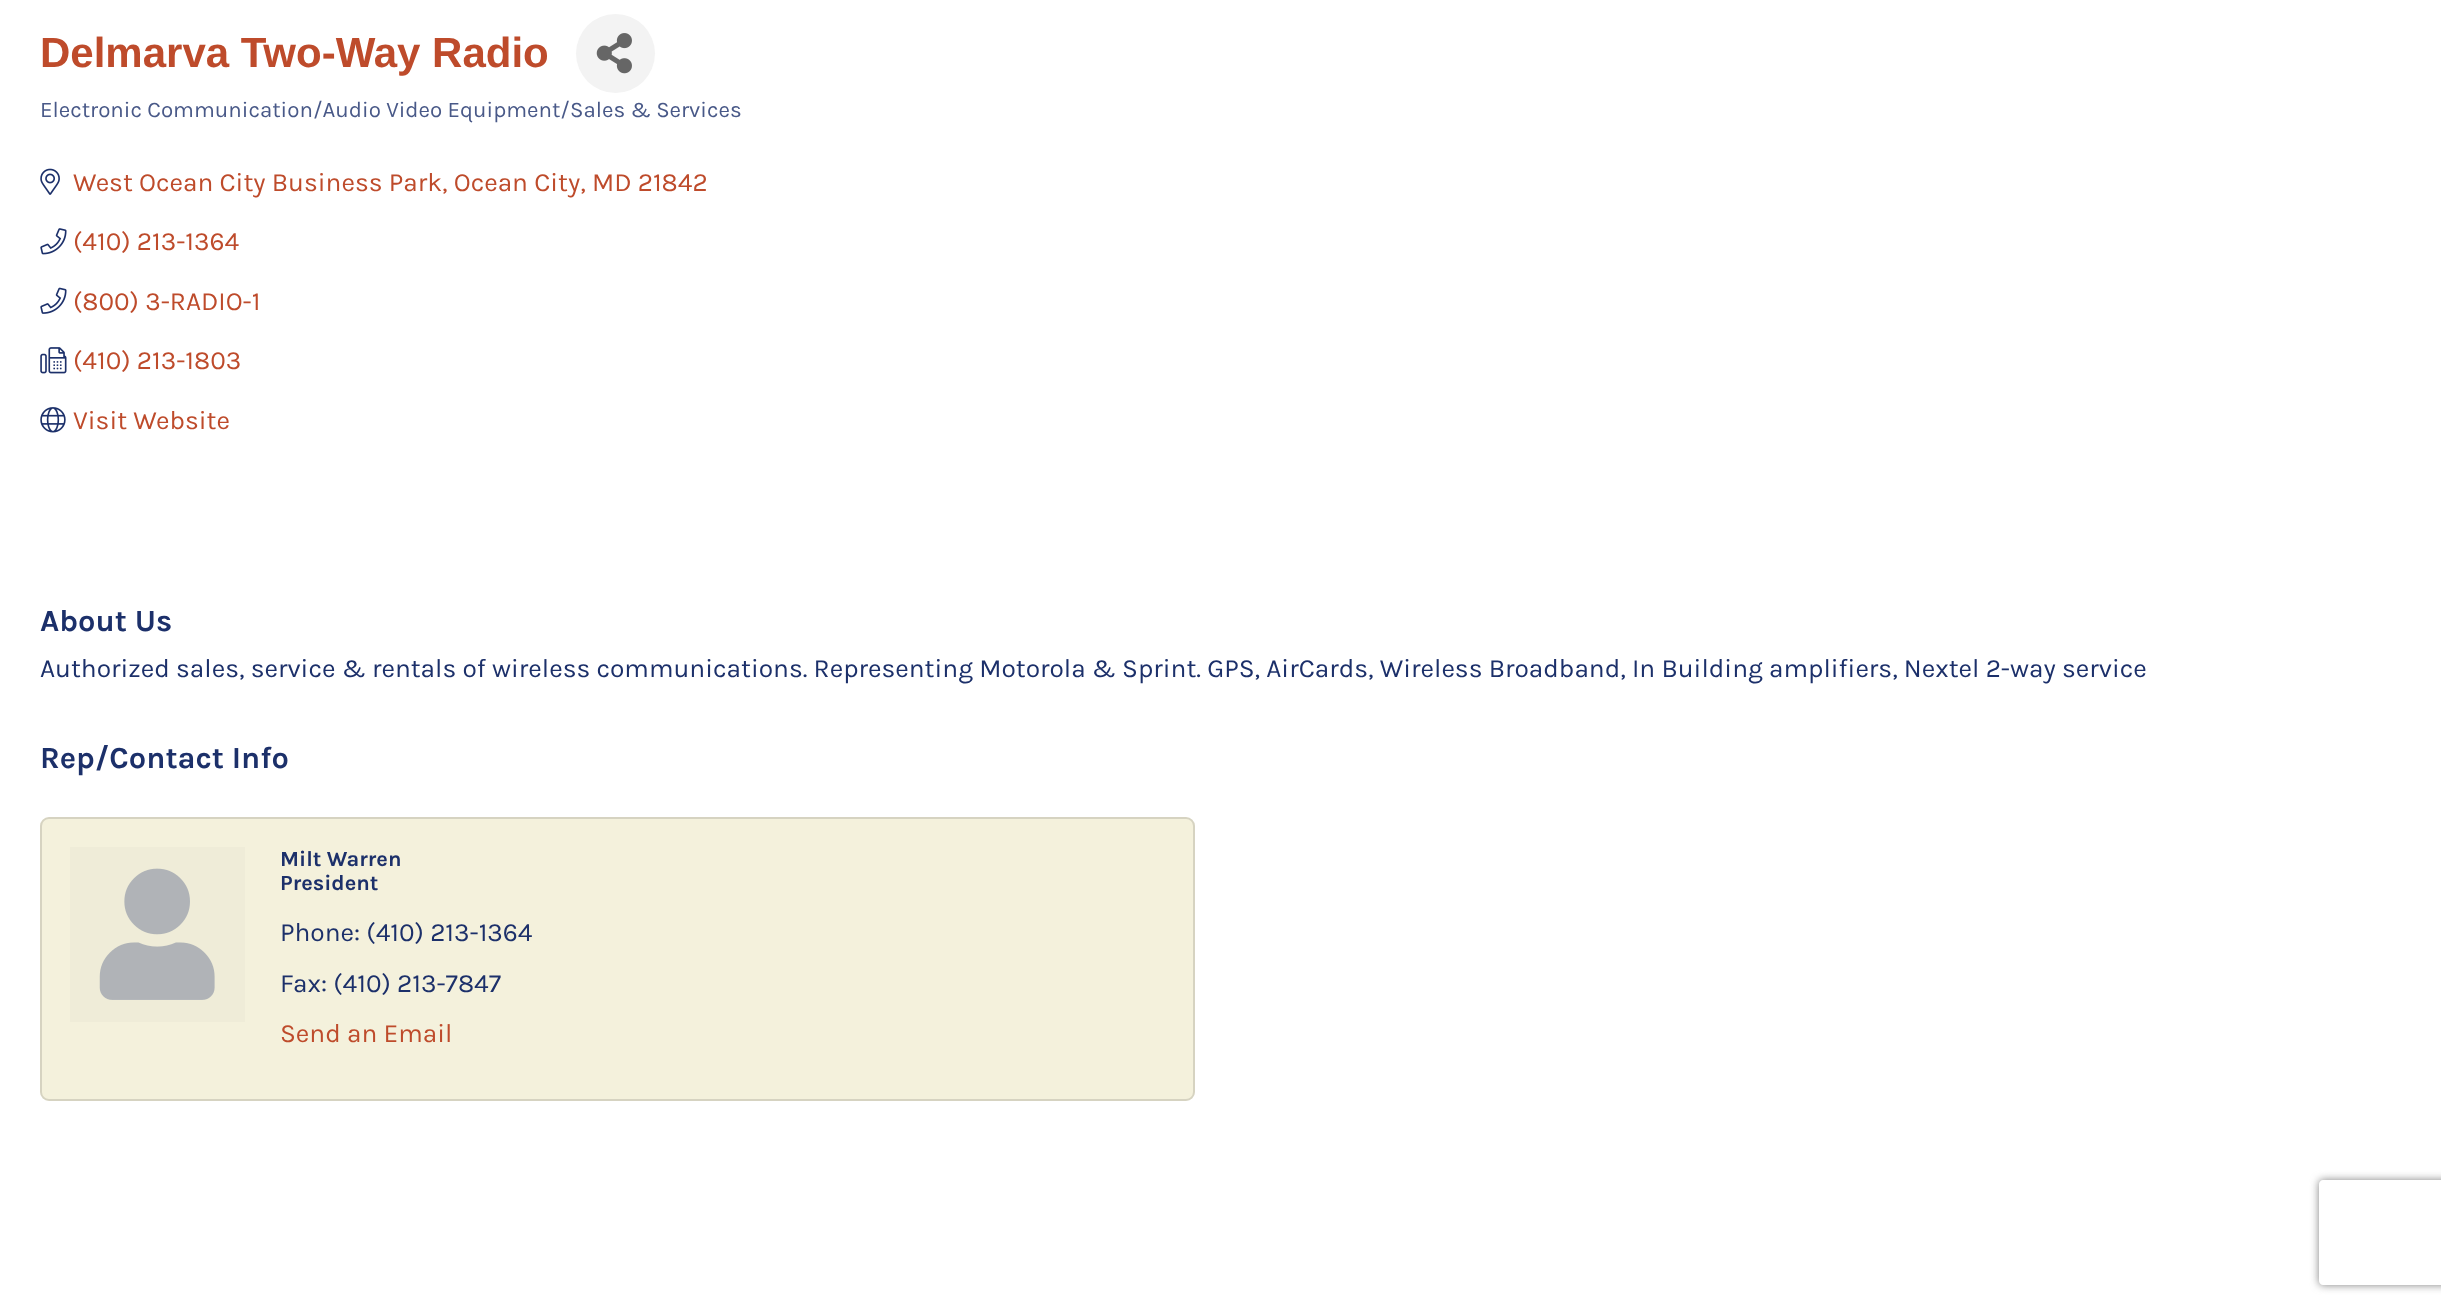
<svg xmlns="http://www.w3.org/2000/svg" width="2441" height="1308">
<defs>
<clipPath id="clip1"><path d="M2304 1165h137v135h-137zm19 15h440c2 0 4 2 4 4v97c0 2-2 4-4 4h-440c-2 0-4-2-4-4v-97c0-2 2-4 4-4z" clip-rule="evenodd"/></clipPath>
</defs>
<rect width="100%" height="100%" fill="#fff"/>
<text x="40" y="67" style="font-family:Liberation Sans;font-size:42px;font-weight:bold;fill:#be4b2b">Delmarva Two-Way Radio</text>
<circle cx="615.5" cy="53.5" r="39.5" fill="#f3f3f3"/>
<image x="596" y="33" width="36" height="41" href="media/1.png"/>
<text x="40" y="117" style="font-family:Karla;font-size:22.3px;fill:#495988">Electronic Communication/Audio Video Equipment/Sales &amp; Services</text>
<image x="40" y="168" width="20" height="27" href="media/2.png"/>
<text x="73" y="191" style="font-family:Karla;font-size:26.25px;fill:#be4b2b">West Ocean City Business Park, Ocean City, MD 21842</text>
<image x="40" y="228" width="27" height="27" href="media/3.png"/>
<text x="73" y="250" style="font-family:Karla;font-size:26.25px;fill:#be4b2b">(410) 213-1364</text>
<image x="40" y="287" width="27" height="27" href="media/4.png"/>
<text x="73" y="310" style="font-family:Karla;font-size:26.25px;fill:#be4b2b">(800) 3-RADIO-1</text>
<image x="40" y="347" width="27" height="27" href="media/5.png"/>
<text x="73" y="369" style="font-family:Karla;font-size:26.25px;fill:#be4b2b">(410) 213-1803</text>
<image x="40" y="407" width="26" height="26" href="media/6.png"/>
<text x="73" y="429" style="font-family:Karla;font-size:26.25px;fill:#be4b2b">Visit Website</text>
<text x="40" y="631" style="font-family:Karla;font-size:30.75px;font-weight:bold;fill:#1c306a">About Us</text>
<text x="40" y="677" style="font-family:Karla;font-size:26.25px;fill:#1c306a">Authorized sales, service &amp; rentals of wireless communications. Representing Motorola &amp; Sprint. GPS, AirCards, Wireless Broadband, In Building amplifiers, Nextel 2-way service</text>
<text x="40" y="768" style="font-family:Karla;font-size:30.75px;font-weight:bold;fill:#1c306a">Rep/Contact Info</text>
<rect x="40" y="817" width="1155" height="284" rx="9" fill="#f4f1dc"/>
<rect x="41" y="818" width="1153" height="282" rx="8" fill="none" stroke="#0000001f" stroke-width="2"/>
<rect x="70" y="847" width="175" height="175" fill="#efecd8"/>
<image x="99" y="868" width="116" height="132" href="media/7.png"/>
<text x="280" y="866" style="font-family:Karla;font-size:21.75px;font-weight:bold;fill:#1c306a">Milt Warren</text>
<text x="280" y="890" style="font-family:Karla;font-size:21.75px;font-weight:bold;fill:#1c306a">President</text>
<text x="280" y="941" style="font-family:Karla;font-size:26.25px;fill:#1c306a">Phone: (410) 213-1364</text>
<text x="280" y="992" style="font-family:Karla;font-size:26.25px;fill:#1c306a">Fax: (410) 213-7847</text>
<text x="280" y="1042" style="font-family:Karla;font-size:26.25px;fill:#be4b2b">Send an Email</text>
<g clip-path="url(#clip1)">
<rect x="2319" y="1180" width="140" height="105" rx="4" fill="#808080" filter="blur(4.5px)"/>
</g>
</svg>
